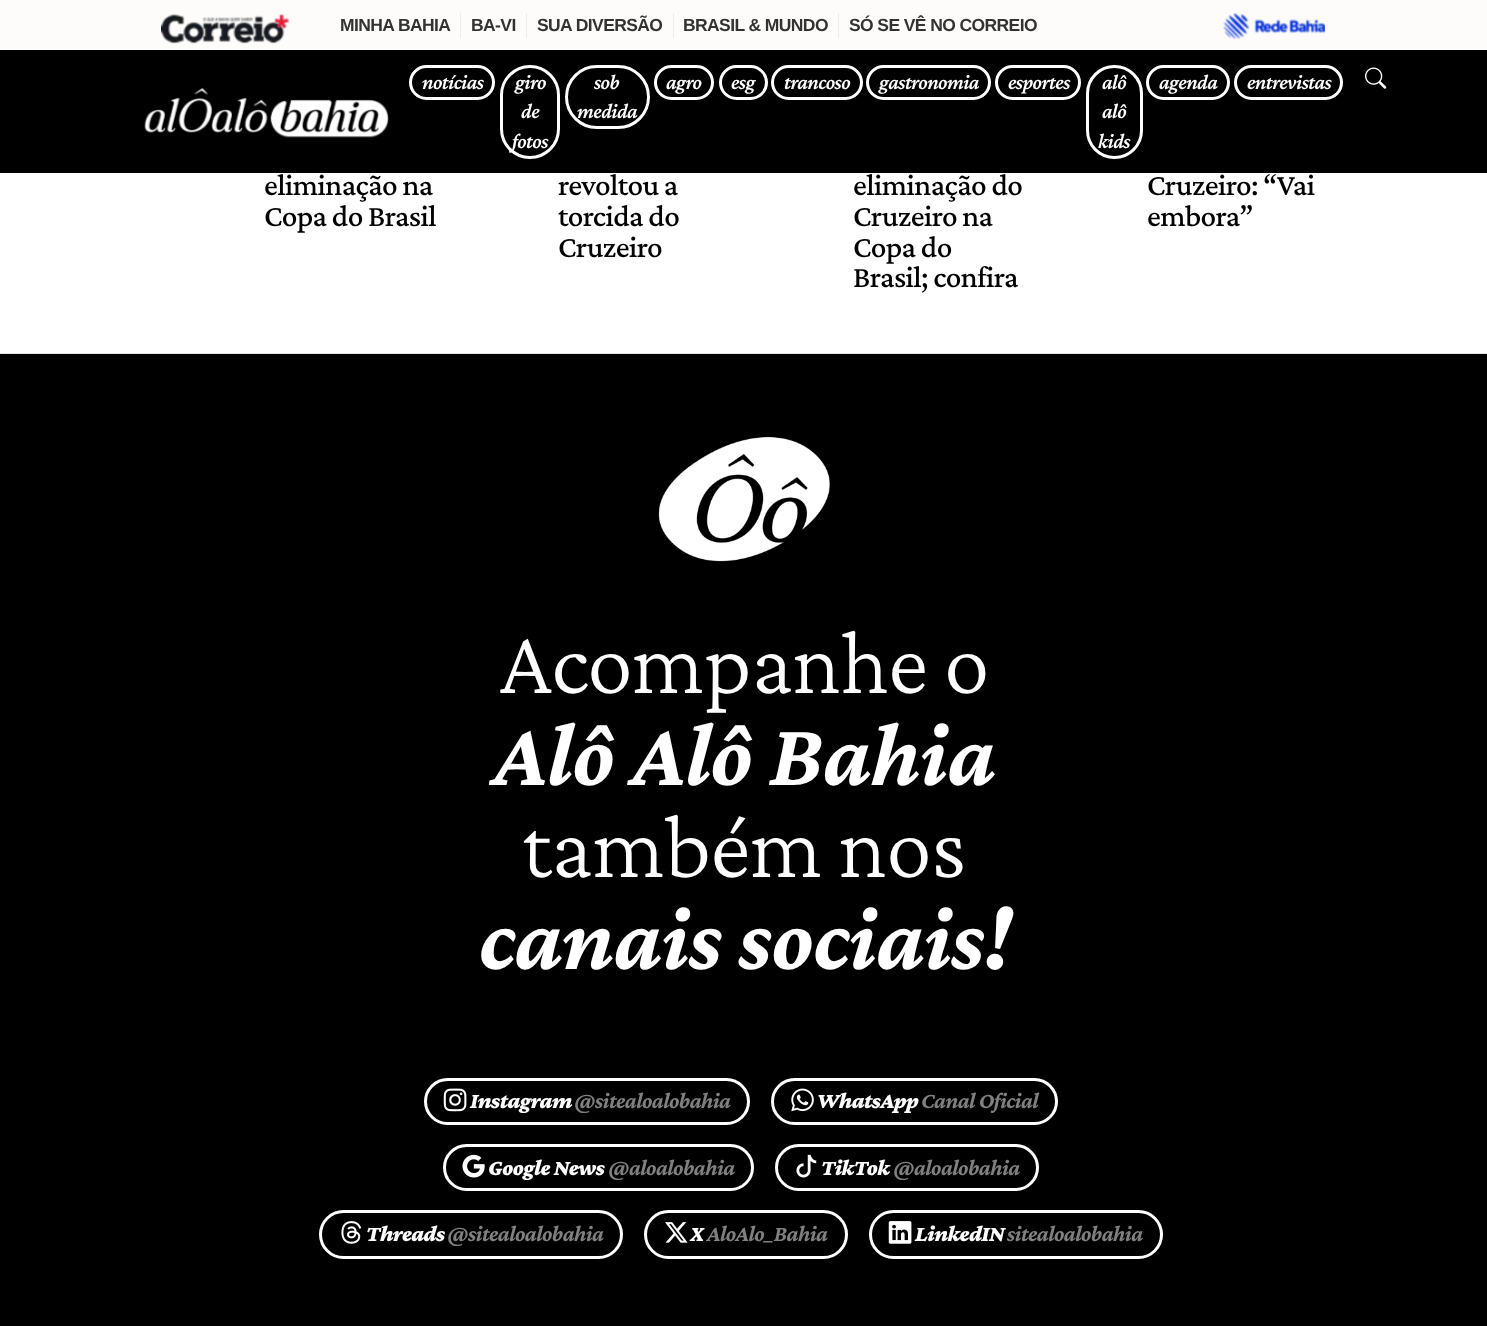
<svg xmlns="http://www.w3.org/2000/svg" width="1487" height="1326">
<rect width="100%" height="100%" fill="#fff"/>
<rect width="1487" height="50" fill="#fdfcfa"/>
<image x="161" y="14" width="129" height="30" href="media/1.png"/>
<rect x="460" y="13" width="1" height="25" fill="#f0ece5"/>
<text x="340" y="31" style="font-family:Liberation Sans;font-size:17.5px;font-weight:bold;letter-spacing:-0.6px;fill:#333">MINHA BAHIA</text>
<rect x="526" y="13" width="1" height="25" fill="#f0ece5"/>
<text x="471" y="31" style="font-family:Liberation Sans;font-size:17.5px;font-weight:bold;letter-spacing:-0.6px;fill:#333">BA-VI</text>
<rect x="673" y="13" width="1" height="25" fill="#f0ece5"/>
<text x="537" y="31" style="font-family:Liberation Sans;font-size:17.5px;font-weight:bold;letter-spacing:-0.6px;fill:#333">SUA DIVERSÃO</text>
<rect x="838" y="13" width="1" height="25" fill="#f0ece5"/>
<text x="683" y="31" style="font-family:Liberation Sans;font-size:17.5px;font-weight:bold;letter-spacing:-0.6px;fill:#333">BRASIL &amp; MUNDO</text>
<text x="849" y="31" style="font-family:Liberation Sans;font-size:17.5px;font-weight:bold;letter-spacing:-0.6px;fill:#333">SÓ SE VÊ NO CORREIO</text>
<image x="1223" y="13" width="102" height="27" href="media/2.png"/>
<rect y="50" width="1487" height="123" fill="#000"/>
<image x="144" y="88" width="245" height="50" href="media/3.png"/>
<rect x="410.5" y="66.5" width="83" height="32" rx="16" fill="none" stroke="#fff" stroke-width="3"/>
<text x="422" y="89" style="font-family:Crimson Pro;font-size:21.25px;font-weight:600;font-style:italic;letter-spacing:-0.6px;fill:#fff">notícias</text>
<rect x="501.5" y="66.5" width="57" height="91" rx="28.5" fill="none" stroke="#fff" stroke-width="3"/>
<text x="515" y="89" style="font-family:Crimson Pro;font-size:21.25px;font-weight:600;font-style:italic;letter-spacing:-0.6px;fill:#fff">giro</text>
<text x="521" y="118" style="font-family:Crimson Pro;font-size:21.25px;font-weight:600;font-style:italic;letter-spacing:-0.6px;fill:#fff">de</text>
<text x="512" y="148" style="font-family:Crimson Pro;font-size:21.25px;font-weight:600;font-style:italic;letter-spacing:-0.6px;fill:#fff">fotos</text>
<rect x="566.5" y="66.5" width="82" height="61" rx="30.5" fill="none" stroke="#fff" stroke-width="3"/>
<text x="594" y="89" style="font-family:Crimson Pro;font-size:21.25px;font-weight:600;font-style:italic;letter-spacing:-0.6px;fill:#fff">sob</text>
<text x="577" y="118" style="font-family:Crimson Pro;font-size:21.25px;font-weight:600;font-style:italic;letter-spacing:-0.6px;fill:#fff">medida</text>
<rect x="655.5" y="66.5" width="57" height="32" rx="16" fill="none" stroke="#fff" stroke-width="3"/>
<text x="666" y="89" style="font-family:Crimson Pro;font-size:21.25px;font-weight:600;font-style:italic;letter-spacing:-0.6px;fill:#fff">agro</text>
<rect x="720.5" y="66.5" width="46" height="32" rx="16" fill="none" stroke="#fff" stroke-width="3"/>
<text x="731" y="89" style="font-family:Crimson Pro;font-size:21.25px;font-weight:600;font-style:italic;letter-spacing:-0.6px;fill:#fff">esg</text>
<rect x="772.5" y="66.5" width="89" height="32" rx="16" fill="none" stroke="#fff" stroke-width="3"/>
<text x="784" y="89" style="font-family:Crimson Pro;font-size:21.25px;font-weight:600;font-style:italic;letter-spacing:-0.6px;fill:#fff">trancoso</text>
<rect x="867.5" y="66.5" width="122" height="32" rx="16" fill="none" stroke="#fff" stroke-width="3"/>
<text x="879" y="89" style="font-family:Crimson Pro;font-size:21.25px;font-weight:600;font-style:italic;letter-spacing:-0.6px;fill:#fff">gastronomia</text>
<rect x="996.5" y="66.5" width="83" height="32" rx="16" fill="none" stroke="#fff" stroke-width="3"/>
<text x="1008" y="89" style="font-family:Crimson Pro;font-size:21.25px;font-weight:600;font-style:italic;letter-spacing:-0.6px;fill:#fff">esportes</text>
<rect x="1087.5" y="66.5" width="54" height="91" rx="27" fill="none" stroke="#fff" stroke-width="3"/>
<text x="1102" y="89" style="font-family:Crimson Pro;font-size:21.25px;font-weight:600;font-style:italic;letter-spacing:-0.6px;fill:#fff">alô</text>
<text x="1102" y="118" style="font-family:Crimson Pro;font-size:21.25px;font-weight:600;font-style:italic;letter-spacing:-0.6px;fill:#fff">alô</text>
<text x="1098" y="148" style="font-family:Crimson Pro;font-size:21.25px;font-weight:600;font-style:italic;letter-spacing:-0.6px;fill:#fff">kids</text>
<rect x="1147.5" y="66.5" width="81" height="32" rx="16" fill="none" stroke="#fff" stroke-width="3"/>
<text x="1159" y="89" style="font-family:Crimson Pro;font-size:21.25px;font-weight:600;font-style:italic;letter-spacing:-0.6px;fill:#fff">agenda</text>
<rect x="1235.5" y="66.5" width="106" height="32" rx="16" fill="none" stroke="#fff" stroke-width="3"/>
<text x="1247" y="89" style="font-family:Crimson Pro;font-size:21.25px;font-weight:600;font-style:italic;letter-spacing:-0.6px;fill:#fff">entrevistas</text>
<image x="1365" y="67" width="22" height="22" href="media/4.png"/>
<text x="264" y="195" style="font-family:Crimson Pro;font-size:31px;font-weight:500;letter-spacing:-0.6px;fill:#000">eliminação na</text>
<text x="264" y="226" style="font-family:Crimson Pro;font-size:31px;font-weight:500;letter-spacing:-0.6px;fill:#000">Copa do Brasil</text>
<text x="558" y="195" style="font-family:Crimson Pro;font-size:31px;font-weight:500;letter-spacing:-0.6px;fill:#000">revoltou a</text>
<text x="558" y="226" style="font-family:Crimson Pro;font-size:31px;font-weight:500;letter-spacing:-0.6px;fill:#000">torcida do</text>
<text x="558" y="257" style="font-family:Crimson Pro;font-size:31px;font-weight:500;letter-spacing:-0.6px;fill:#000">Cruzeiro</text>
<text x="853" y="195" style="font-family:Crimson Pro;font-size:31px;font-weight:500;letter-spacing:-0.6px;fill:#000">eliminação do</text>
<text x="853" y="226" style="font-family:Crimson Pro;font-size:31px;font-weight:500;letter-spacing:-0.6px;fill:#000">Cruzeiro na</text>
<text x="853" y="257" style="font-family:Crimson Pro;font-size:31px;font-weight:500;letter-spacing:-0.6px;fill:#000">Copa do</text>
<text x="853" y="287" style="font-family:Crimson Pro;font-size:31px;font-weight:500;letter-spacing:-0.6px;fill:#000">Brasil; confira</text>
<text x="1147" y="195" style="font-family:Crimson Pro;font-size:31px;font-weight:500;letter-spacing:-0.6px;fill:#000">Cruzeiro: “Vai</text>
<text x="1147" y="226" style="font-family:Crimson Pro;font-size:31px;font-weight:500;letter-spacing:-0.6px;fill:#000">embora”</text>
<rect y="354" width="1487" height="972" fill="#000"/>
<rect y="353" width="1487" height="1" fill="#dee2e6"/>
<image x="658" y="436" width="172" height="126" href="media/5.png"/>
<text x="500" y="693" style="font-family:Crimson Pro;font-size:92px;font-weight:300;letter-spacing:-0.6px;fill:#fff">Acompanhe o</text>
<text x="493" y="785" style="font-family:Crimson Pro;font-size:92px;font-weight:bold;font-style:italic;letter-spacing:-0.6px;fill:#fff">Alô Alô Bahia</text>
<text x="522" y="877" style="font-family:Crimson Pro;font-size:92px;font-weight:300;letter-spacing:-0.6px;fill:#fff">também nos</text>
<text x="479" y="969" style="font-family:Crimson Pro;font-size:92px;font-weight:bold;font-style:italic;letter-spacing:-0.6px;fill:#fff">canais sociais!</text>
<rect x="425.5" y="1079.5" width="323" height="44" rx="22" fill="none" stroke="#fff" stroke-width="3"/>
<image x="443" y="1088" width="24" height="24" href="media/6.png"/>
<text x="470" y="1108" style="font-family:Crimson Pro;font-size:22.75px;font-weight:900;font-style:italic;letter-spacing:-0.6px;fill:#fff">Instagram</text>
<text x="574" y="1108" style="font-family:Crimson Pro;font-size:22.75px;font-weight:bold;font-style:italic;letter-spacing:-0.6px;fill:#808080">@sitealoalobahia</text>
<rect x="772.5" y="1079.5" width="284" height="44" rx="22" fill="none" stroke="#fff" stroke-width="3"/>
<image x="791" y="1088" width="23" height="24" href="media/7.png"/>
<text x="817" y="1108" style="font-family:Crimson Pro;font-size:22.75px;font-weight:900;font-style:italic;letter-spacing:-0.6px;fill:#fff">WhatsApp</text>
<text x="921" y="1108" style="font-family:Crimson Pro;font-size:22.75px;font-weight:bold;font-style:italic;letter-spacing:-0.6px;fill:#808080">Canal Oficial</text>
<rect x="444.5" y="1145.5" width="308" height="44" rx="22" fill="none" stroke="#fff" stroke-width="3"/>
<image x="462" y="1154" width="23" height="24" href="media/8.png"/>
<text x="488" y="1175" style="font-family:Crimson Pro;font-size:22.75px;font-weight:900;font-style:italic;letter-spacing:-0.6px;fill:#fff">Google News</text>
<text x="608" y="1175" style="font-family:Crimson Pro;font-size:22.75px;font-weight:bold;font-style:italic;letter-spacing:-0.6px;fill:#808080">@aloalobahia</text>
<rect x="776.5" y="1145.5" width="261" height="44" rx="22" fill="none" stroke="#fff" stroke-width="3"/>
<image x="796" y="1154" width="21" height="24" href="media/9.png"/>
<text x="821" y="1175" style="font-family:Crimson Pro;font-size:22.75px;font-weight:900;font-style:italic;letter-spacing:-0.6px;fill:#fff">TikTok</text>
<text x="893" y="1175" style="font-family:Crimson Pro;font-size:22.75px;font-weight:bold;font-style:italic;letter-spacing:-0.6px;fill:#808080">@aloalobahia</text>
<rect x="320.5" y="1211.5" width="301" height="46" rx="23" fill="none" stroke="#fff" stroke-width="3"/>
<image x="341" y="1221" width="21" height="23" href="media/10.png"/>
<text x="366" y="1241" style="font-family:Crimson Pro;font-size:22.75px;font-weight:900;font-style:italic;letter-spacing:-0.6px;fill:#fff">Threads</text>
<text x="447" y="1241" style="font-family:Crimson Pro;font-size:22.75px;font-weight:bold;font-style:italic;letter-spacing:-0.6px;fill:#808080">@sitealoalobahia</text>
<rect x="645.5" y="1211.5" width="201" height="46" rx="23" fill="none" stroke="#fff" stroke-width="3"/>
<image x="665" y="1222" width="23" height="21" href="media/11.png"/>
<text x="690" y="1241" style="font-family:Crimson Pro;font-size:22.75px;font-weight:900;font-style:italic;letter-spacing:-0.6px;fill:#fff">X</text>
<text x="707" y="1241" style="font-family:Crimson Pro;font-size:22.75px;font-weight:bold;font-style:italic;letter-spacing:-0.6px;fill:#808080">AloAlo_Bahia</text>
<rect x="870.5" y="1211.5" width="291" height="46" rx="23" fill="none" stroke="#fff" stroke-width="3"/>
<image x="888" y="1221" width="24" height="23" href="media/12.png"/>
<text x="915" y="1241" style="font-family:Crimson Pro;font-size:22.75px;font-weight:900;font-style:italic;letter-spacing:-0.6px;fill:#fff">LinkedIN</text>
<text x="1007" y="1241" style="font-family:Crimson Pro;font-size:22.75px;font-weight:bold;font-style:italic;letter-spacing:-0.6px;fill:#808080">sitealoalobahia</text>
</svg>
